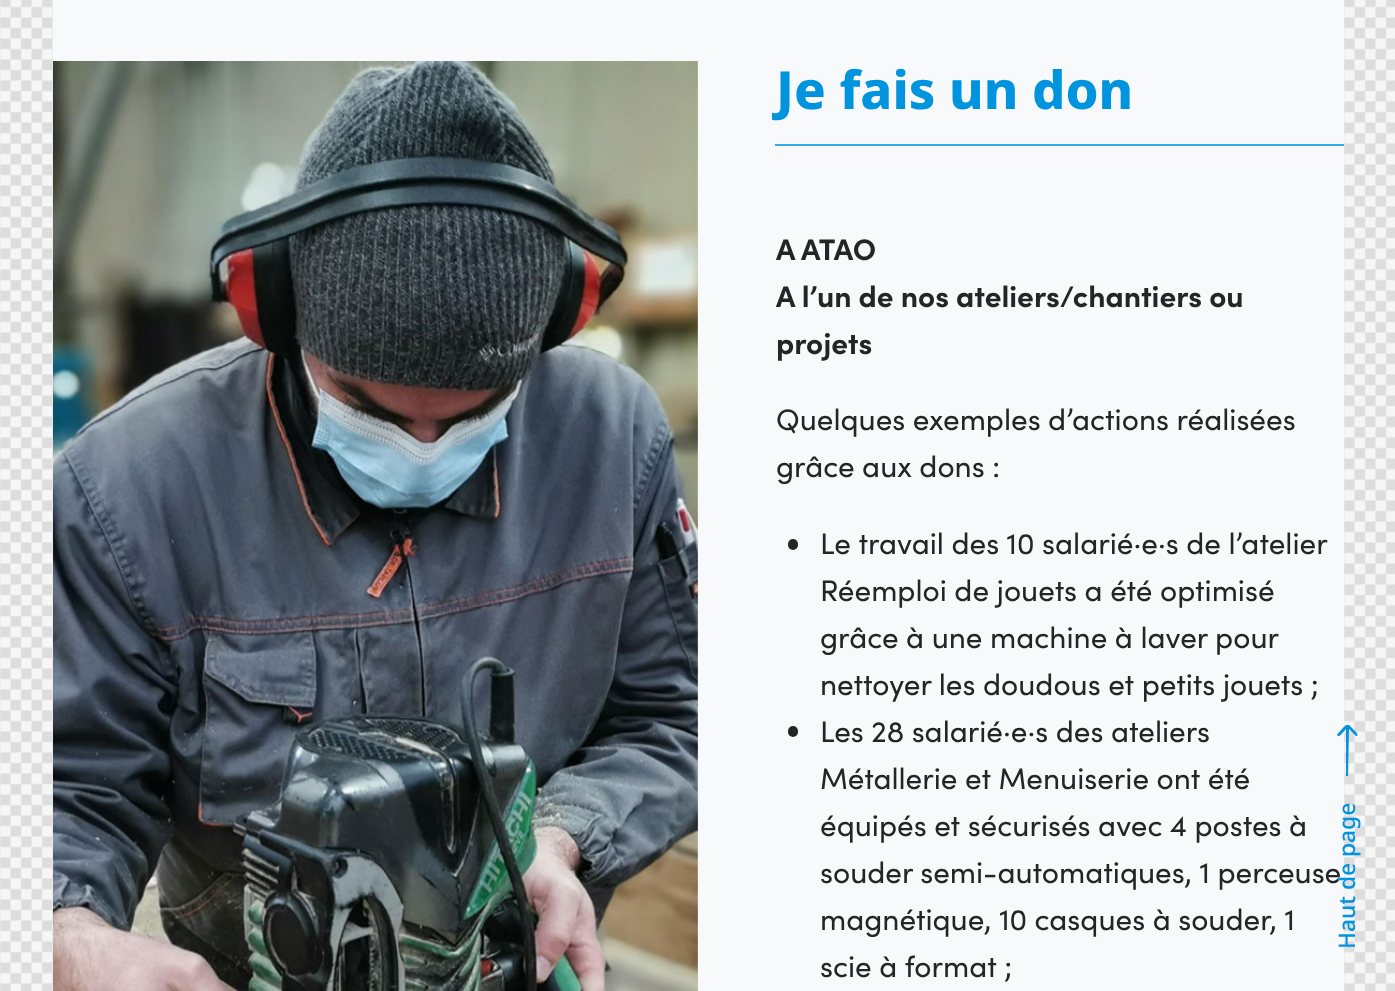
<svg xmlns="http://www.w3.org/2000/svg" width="1395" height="991">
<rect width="100%" height="100%" fill="#fff"/>
<image x="0" y="0" width="1395" height="991" href="media/1.png"/>
<rect x="53" width="1291" height="991" fill="#f8f9fb"/>
<image x="53" y="61" width="645" height="930" href="media/2.png"/>
<text x="776" y="109" style="font-family:Noto Sans;font-size:52.5px;font-weight:800;fill:#0094de">Je fais un don</text>
<rect x="775" y="144" width="569" height="2" fill="#35a9e6"/>
<text x="776" y="260" style="font-family:Sofia;font-size:29.75px;font-weight:bold;fill:#252525">A ATAO</text>
<text x="776" y="307" style="font-family:Sofia;font-size:29.75px;font-weight:bold;fill:#252525">A l’un de nos ateliers/chantiers ou</text>
<text x="776" y="354" style="font-family:Sofia;font-size:29.75px;font-weight:bold;fill:#252525">projets</text>
<text x="776" y="430" style="font-family:Sofia;font-size:29.75px;fill:#252525">Quelques exemples d’actions réalisées</text>
<text x="776" y="477" style="font-family:Sofia;font-size:29.75px;fill:#252525">grâce aux dons :</text>
<rect x="788" y="539" width="10" height="11" rx="5" fill="#252525"/>
<text x="820" y="554" style="font-family:Sofia;font-size:29.75px;fill:#252525">Le travail des 10 salarié·e·s de l’atelier</text>
<text x="820" y="601" style="font-family:Sofia;font-size:29.75px;fill:#252525">Réemploi de jouets a été optimisé</text>
<text x="820" y="648" style="font-family:Sofia;font-size:29.75px;fill:#252525">grâce à une machine à laver pour</text>
<text x="820" y="695" style="font-family:Sofia;font-size:29.75px;fill:#252525">nettoyer les doudous et petits jouets ;</text>
<rect x="788" y="726" width="10" height="11" rx="5" fill="#252525"/>
<text x="820" y="742" style="font-family:Sofia;font-size:29.75px;fill:#252525">Les 28 salarié·e·s des ateliers</text>
<text x="820" y="789" style="font-family:Sofia;font-size:29.75px;fill:#252525">Métallerie et Menuiserie ont été</text>
<text x="820" y="836" style="font-family:Sofia;font-size:29.75px;fill:#252525">équipés et sécurisés avec 4 postes à</text>
<text x="820" y="883" style="font-family:Sofia;font-size:29.75px;fill:#252525">souder semi-automatiques, 1 perceuse</text>
<text x="820" y="930" style="font-family:Sofia;font-size:29.75px;fill:#252525">magnétique, 10 casques à souder, 1</text>
<text x="820" y="977" style="font-family:Sofia;font-size:29.75px;fill:#252525">scie à format ;</text>
<path d="M1349 725h-3c-1 1-9 9-9 10l1 1c2 1 6-5 8-7v47h2l1-47l7 7h1c2-2-3-6-4-7z" fill="#0094de"/>
<text x="1355" y="949" transform="rotate(-90 1355 949)" style="font-family:Noto Sans;font-size:22.75px;font-weight:500;fill:#0094de">Haut de page</text>
</svg>
